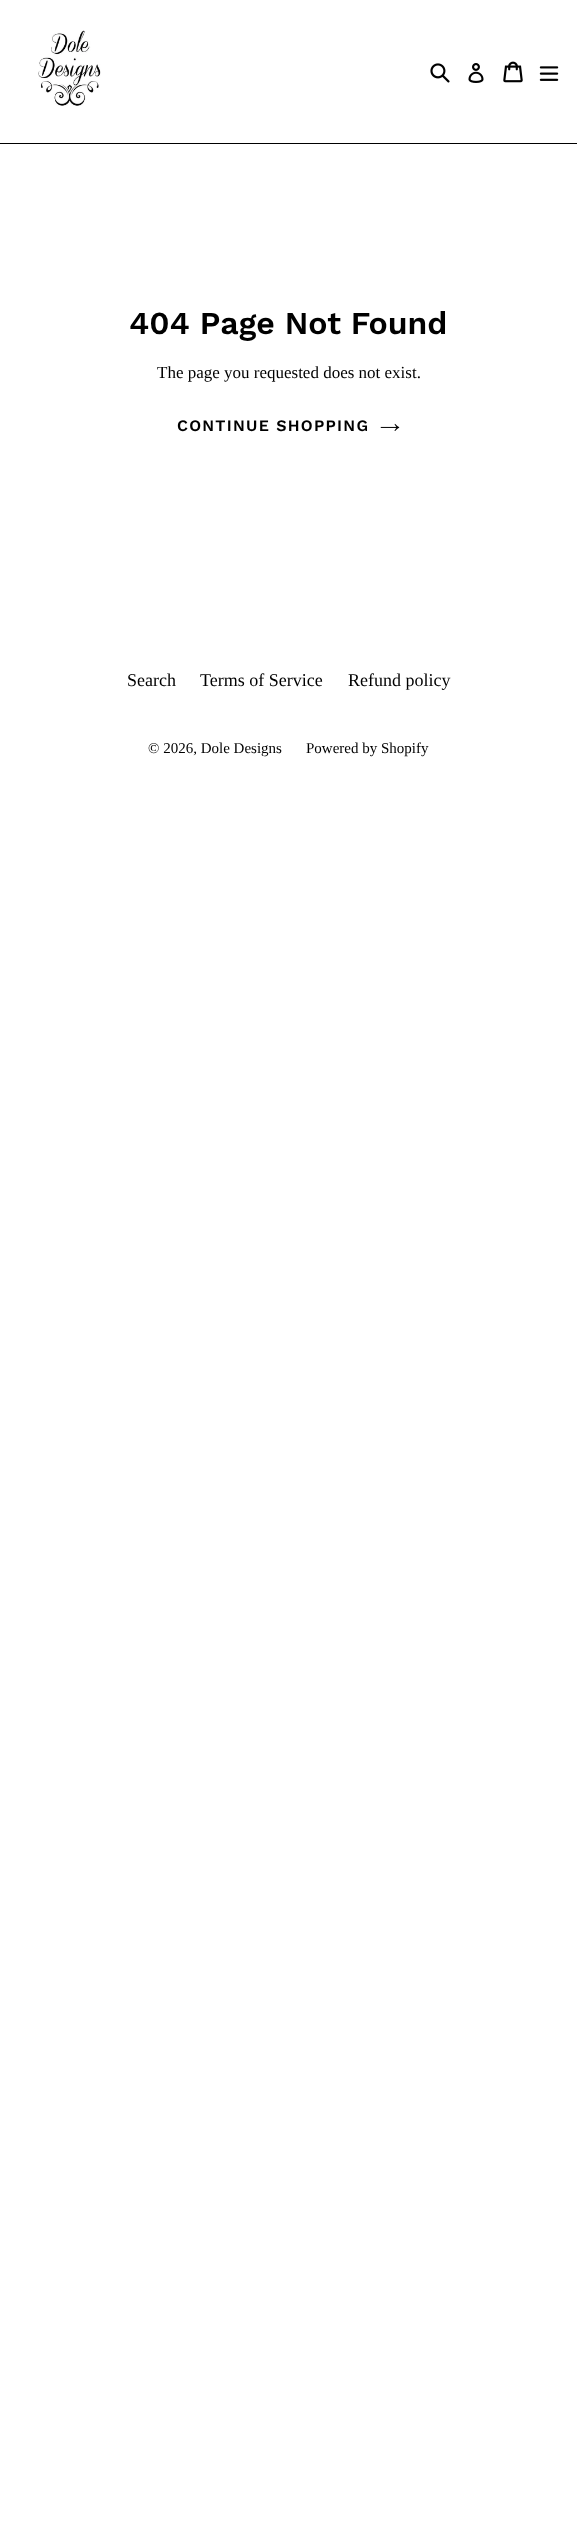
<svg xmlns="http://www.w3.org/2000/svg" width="577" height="2544">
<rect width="100%" height="100%" fill="#fff"/>
<rect y="143" width="577" height="1" fill="#000"/>
<image x="38" y="30" width="63" height="76" href="media/1.png"/>
<image x="430" y="63" width="20" height="20" href="media/2.png"/>
<image x="468" y="63" width="16" height="20" href="media/3.png"/>
<image x="503" y="61" width="20" height="22" href="media/4.png"/>
<image x="539" y="66" width="20" height="15" href="media/5.png"/>
<text x="129" y="334" style="font-family:Work Sans;font-size:32px;font-weight:600;fill:#000">404 Page Not Found</text>
<text x="157" y="378" style="font-family:Liberation Serif;font-size:17px;fill:#000">The page you requested does not exist.</text>
<text x="177" y="431" style="font-family:Work Sans;font-size:16px;font-weight:600;letter-spacing:1.25px;fill:#000">CONTINUE SHOPPING</text>
<image x="380" y="423" width="20" height="8" href="media/6.png"/>
<text x="127" y="686" style="font-family:Liberation Serif;font-size:18px;fill:#000">Search</text>
<text x="200" y="686" style="font-family:Liberation Serif;font-size:18px;fill:#000">Terms of Service</text>
<text x="348" y="686" style="font-family:Liberation Serif;font-size:18px;fill:#000">Refund policy</text>
<text x="148" y="753" style="font-family:Liberation Serif;font-size:15px;fill:#000">© 2026, Dole Designs</text>
<text x="306" y="753" style="font-family:Liberation Serif;font-size:15px;fill:#000">Powered by Shopify</text>
</svg>
